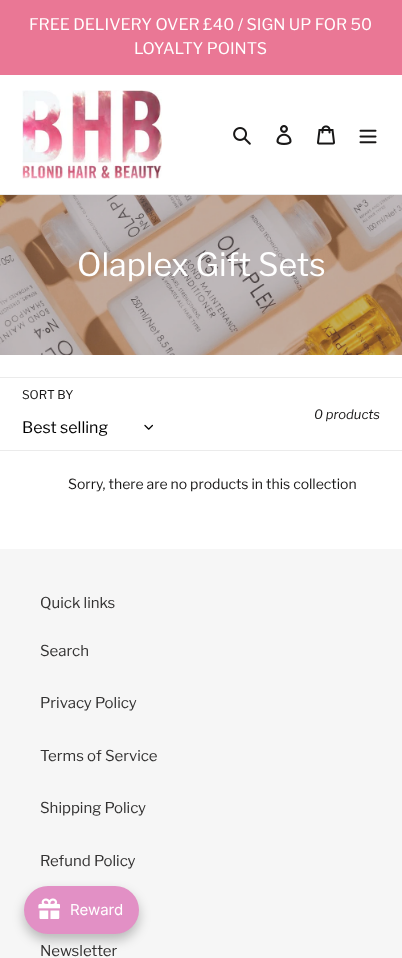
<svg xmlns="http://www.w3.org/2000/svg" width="402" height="958">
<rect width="100%" height="100%" fill="#fff"/>
<rect width="402" height="75" fill="#ea7795"/>
<text x="29" y="30" style="font-family:Libre Franklin;font-size:16px;fill:#fff">FREE DELIVERY OVER £40 / SIGN UP FOR 50</text>
<text x="134" y="54" style="font-family:Libre Franklin;font-size:16px;fill:#fff">LOYALTY POINTS</text>
<rect y="194" width="402" height="1" fill="#ebebeb"/>
<image x="22" y="90" width="140" height="89" href="media/1.png"/>
<image x="233" y="127" width="18" height="18" href="media/2.png"/>
<image x="276" y="125" width="16" height="20" href="media/3.png"/>
<image x="317" y="125" width="18" height="20" href="media/4.png"/>
<image x="359" y="129" width="18" height="15" href="media/5.png"/>
<image x="0" y="195" width="402" height="160" href="media/6.png"/>
<text x="77" y="276" style="font-family:Libre Franklin;font-size:32px;fill:#fff">Olaplex Gift Sets</text>
<rect y="377" width="402" height="1" fill="#ebebeb"/>
<rect y="450" width="402" height="1" fill="#ebebeb"/>
<text x="22" y="399" style="font-family:Libre Franklin;font-size:12px;fill:#181717">SORT BY</text>
<text x="22" y="433" style="font-family:Libre Franklin;font-size:16px;fill:#000">Best selling</text>
<image x="144" y="424" width="9" height="6" href="media/7.png"/>
<text x="314" y="419" style="font-family:Libre Franklin;font-size:13px;font-style:italic;fill:#181717">0 products</text>
<text x="68" y="489" style="font-family:Libre Franklin;font-size:14px;fill:#181717">Sorry, there are no products in this collection</text>
<rect y="549" width="402" height="409" fill="#f6f6f6"/>
<text x="40" y="608" style="font-family:Libre Franklin;font-size:15px;fill:#333232">Quick links</text>
<text x="40" y="656" style="font-family:Libre Franklin;font-size:15px;fill:#333232">Search</text>
<text x="40" y="708" style="font-family:Libre Franklin;font-size:15px;fill:#333232">Privacy Policy</text>
<text x="40" y="761" style="font-family:Libre Franklin;font-size:15px;fill:#333232">Terms of Service</text>
<text x="40" y="813" style="font-family:Libre Franklin;font-size:15px;fill:#333232">Shipping Policy</text>
<text x="40" y="866" style="font-family:Libre Franklin;font-size:15px;fill:#333232">Refund Policy</text>
<text x="40" y="956" style="font-family:Libre Franklin;font-size:15px;fill:#333232">Newsletter</text>
<rect x="24" y="892" width="115" height="48" rx="24" fill="#00000040" filter="blur(6px)"/>
<rect x="24" y="886" width="115" height="48" rx="24" fill="#e290c5"/>
<image x="38" y="898" width="22" height="21" href="media/8.png"/>
<text x="70" y="915" style="font-family:Inter;font-size:15px;fill:#fff">Reward</text>
</svg>
